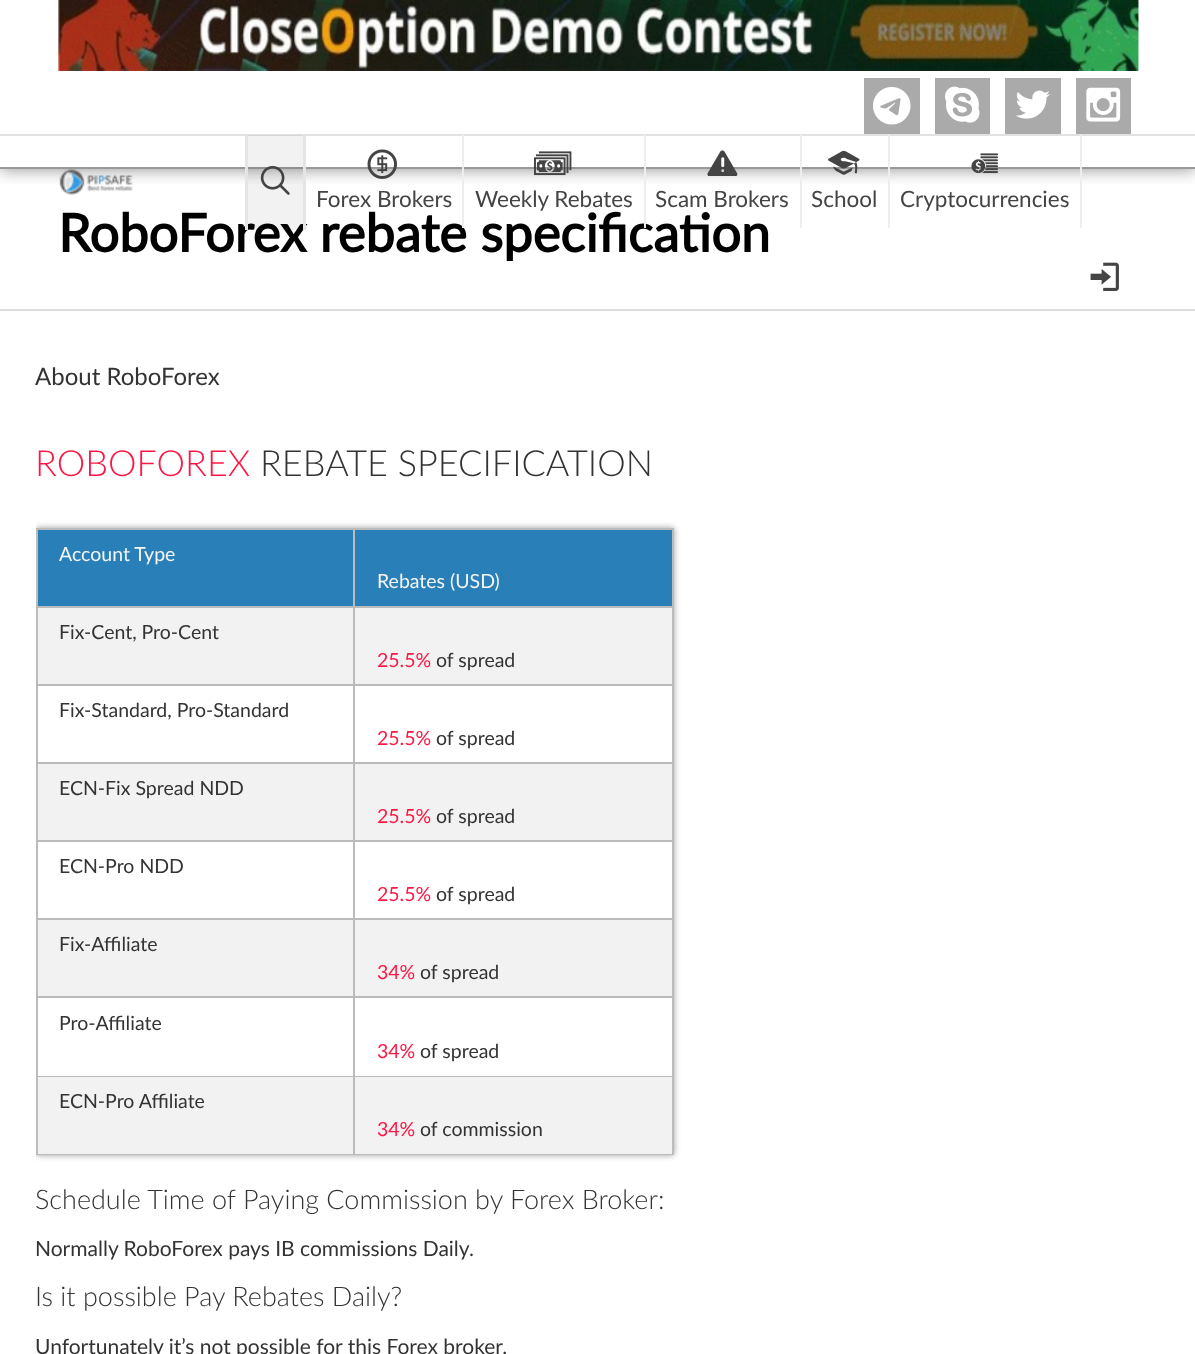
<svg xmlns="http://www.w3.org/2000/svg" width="1195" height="1354">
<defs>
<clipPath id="clip1"><rect x="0" y="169" width="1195" height="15"/></clipPath>
<clipPath id="clip2"><rect x="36" y="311" width="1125" height="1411"/></clipPath>
<clipPath id="clip3"><path d="M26 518h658v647h-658zm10 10h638v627h-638z" clip-rule="evenodd"/></clipPath>
</defs>
<rect width="100%" height="100%" fill="#fff"/>
<g clip-path="url(#clip1)">
<rect width="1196" height="168" fill="#00000080" filter="blur(9px)"/>
</g>
<rect y="167" width="1195" height="2" fill="#999"/>
<rect y="134" width="1195" height="2" fill="#e2e2e2"/>
<image x="58" y="0" width="1081" height="71" href="media/1.png"/>
<rect x="864" y="78" width="56" height="56" fill="#aaa"/>
<image x="873" y="87" width="38" height="38" href="media/2.png"/>
<rect x="935" y="78" width="55" height="56" fill="#aaa"/>
<image x="945" y="86" width="35" height="37" href="media/3.png"/>
<rect x="1005" y="78" width="56" height="56" fill="#aaa"/>
<image x="1015" y="90" width="35" height="29" href="media/4.png"/>
<rect x="1076" y="78" width="55" height="56" fill="#aaa"/>
<image x="1086" y="87" width="35" height="35" href="media/5.png"/>
<image x="59" y="169" width="74" height="27" href="media/6.png"/>
<rect x="248" y="135" width="55" height="95" fill="#0000000d"/>
<text x="58" y="252" style="font-family:Lato;font-size:52.5px;font-weight:bold;fill:#000">RoboForex rebate specification</text>
<rect x="303" y="135" width="3" height="95" fill="#e5e5e5"/>
<rect x="245" y="135" width="3" height="95" fill="#e5e5e5"/>
<image x="260" y="165" width="30" height="30" href="media/7.png"/>
<rect x="462" y="135" width="2" height="93" fill="#eee"/>
<image x="367" y="149" width="30" height="30" href="media/8.png"/>
<text x="316" y="207" style="font-family:Lato;font-size:22.5px;fill:#444">Forex Brokers</text>
<rect x="644" y="135" width="2" height="93" fill="#eee"/>
<image x="534" y="151" width="38" height="25" href="media/9.png"/>
<text x="475" y="207" style="font-family:Lato;font-size:22.5px;fill:#444">Weekly Rebates</text>
<rect x="800" y="135" width="2" height="93" fill="#eee"/>
<image x="707" y="150" width="31" height="26" href="media/10.png"/>
<text x="655" y="207" style="font-family:Lato;font-size:22.5px;fill:#444">Scam Brokers</text>
<rect x="888" y="135" width="2" height="93" fill="#eee"/>
<image x="828" y="150" width="32" height="25" href="media/11.png"/>
<text x="811" y="207" style="font-family:Lato;font-size:22.5px;fill:#444">School</text>
<rect x="1080" y="135" width="2" height="93" fill="#eee"/>
<image x="971" y="153" width="27" height="21" href="media/12.png"/>
<text x="900" y="207" style="font-family:Lato;font-size:22.5px;fill:#444">Cryptocurrencies</text>
<image x="1090" y="262" width="29" height="29" href="media/13.png"/>
<rect y="309" width="1195" height="2" fill="#ddd"/>
<text x="35" y="385" style="font-family:Lato;font-size:24px;fill:#333">About RoboForex</text>
<text x="35" y="476" style="font-family:Lato;font-size:36px;font-weight:300;fill:#fe1743">ROBOFOREX</text>
<text x="260" y="476" style="font-family:Lato;font-size:36px;font-weight:300;fill:#333">REBATE SPECIFICATION</text>
<g clip-path="url(#clip2)">
<g clip-path="url(#clip3)">
<rect x="36" y="528" width="638" height="627" fill="#00000066" filter="blur(3px)"/>
</g>
</g>
<rect x="37" y="529" width="636" height="625" fill="none" stroke="#bbb" stroke-width="2"/>
<rect x="38" y="530" width="634" height="76" fill="#2980b9"/>
<rect x="38" y="606" width="634" height="2" fill="#bbb"/>
<rect x="353" y="530" width="2" height="76" fill="#bbb"/>
<text x="59" y="561" style="font-family:Lato;font-size:19.5px;fill:#f5f5f5">Account Type</text>
<text x="377" y="588" style="font-family:Lato;font-size:19.5px;fill:#f5f5f5">Rebates (USD)</text>
<rect x="38" y="608" width="634" height="76" fill="#f2f2f2"/>
<rect x="38" y="684" width="634" height="2" fill="#bbb"/>
<rect x="353" y="608" width="2" height="76" fill="#bbb"/>
<text x="59" y="639" style="font-family:Lato;font-size:19.5px;fill:#333">Fix-Cent, Pro-Cent</text>
<text x="377" y="667" style="font-family:Lato;font-size:19.5px;fill:#fe1743">25.5%</text>
<text x="436" y="667" style="font-family:Lato;font-size:19.5px;fill:#333">of spread</text>
<rect x="38" y="762" width="634" height="2" fill="#bbb"/>
<rect x="353" y="686" width="2" height="76" fill="#bbb"/>
<text x="59" y="717" style="font-family:Lato;font-size:19.5px;fill:#333">Fix-Standard, Pro-Standard</text>
<text x="377" y="745" style="font-family:Lato;font-size:19.5px;fill:#fe1743">25.5%</text>
<text x="436" y="745" style="font-family:Lato;font-size:19.5px;fill:#333">of spread</text>
<rect x="38" y="764" width="634" height="76" fill="#f2f2f2"/>
<rect x="38" y="840" width="634" height="2" fill="#bbb"/>
<rect x="353" y="764" width="2" height="76" fill="#bbb"/>
<text x="59" y="795" style="font-family:Lato;font-size:19.5px;fill:#333">ECN-Fix Spread NDD</text>
<text x="377" y="823" style="font-family:Lato;font-size:19.5px;fill:#fe1743">25.5%</text>
<text x="436" y="823" style="font-family:Lato;font-size:19.5px;fill:#333">of spread</text>
<rect x="38" y="918" width="634" height="2" fill="#bbb"/>
<rect x="353" y="842" width="2" height="76" fill="#bbb"/>
<text x="59" y="873" style="font-family:Lato;font-size:19.5px;fill:#333">ECN-Pro NDD</text>
<text x="377" y="901" style="font-family:Lato;font-size:19.5px;fill:#fe1743">25.5%</text>
<text x="436" y="901" style="font-family:Lato;font-size:19.5px;fill:#333">of spread</text>
<rect x="38" y="920" width="634" height="76" fill="#f2f2f2"/>
<rect x="38" y="996" width="634" height="2" fill="#bbb"/>
<rect x="353" y="920" width="2" height="76" fill="#bbb"/>
<text x="59" y="951" style="font-family:Lato;font-size:19.5px;fill:#333">Fix-Affiliate</text>
<text x="377" y="979" style="font-family:Lato;font-size:19.5px;fill:#fe1743">34%</text>
<text x="420" y="979" style="font-family:Lato;font-size:19.5px;fill:#333">of spread</text>
<rect x="38" y="1076" width="634" height="1" fill="#bbb"/>
<rect x="353" y="998" width="2" height="78" fill="#bbb"/>
<text x="59" y="1030" style="font-family:Lato;font-size:19.5px;fill:#333">Pro-Affiliate</text>
<text x="377" y="1058" style="font-family:Lato;font-size:19.5px;fill:#fe1743">34%</text>
<text x="420" y="1058" style="font-family:Lato;font-size:19.5px;fill:#333">of spread</text>
<rect x="38" y="1077" width="634" height="77" fill="#f2f2f2"/>
<rect x="353" y="1077" width="2" height="77" fill="#bbb"/>
<text x="59" y="1108" style="font-family:Lato;font-size:19.5px;fill:#333">ECN-Pro Affiliate</text>
<text x="377" y="1136" style="font-family:Lato;font-size:19.5px;fill:#fe1743">34%</text>
<text x="420" y="1136" style="font-family:Lato;font-size:19.5px;fill:#333">of commission</text>
<text x="35" y="1209" style="font-family:Lato;font-size:27px;font-weight:300;fill:#333">Schedule Time of Paying Commission by Forex Broker:</text>
<text x="35" y="1256" style="font-family:Lato;font-size:21px;fill:#333">Normally RoboForex pays IB commissions Daily.</text>
<text x="35" y="1306" style="font-family:Lato;font-size:27px;font-weight:300;fill:#333">Is it possible Pay Rebates Daily?</text>
<text x="35" y="1354" style="font-family:Lato;font-size:21px;fill:#333">Unfortunately it’s not possible for this Forex broker.</text>
</svg>
